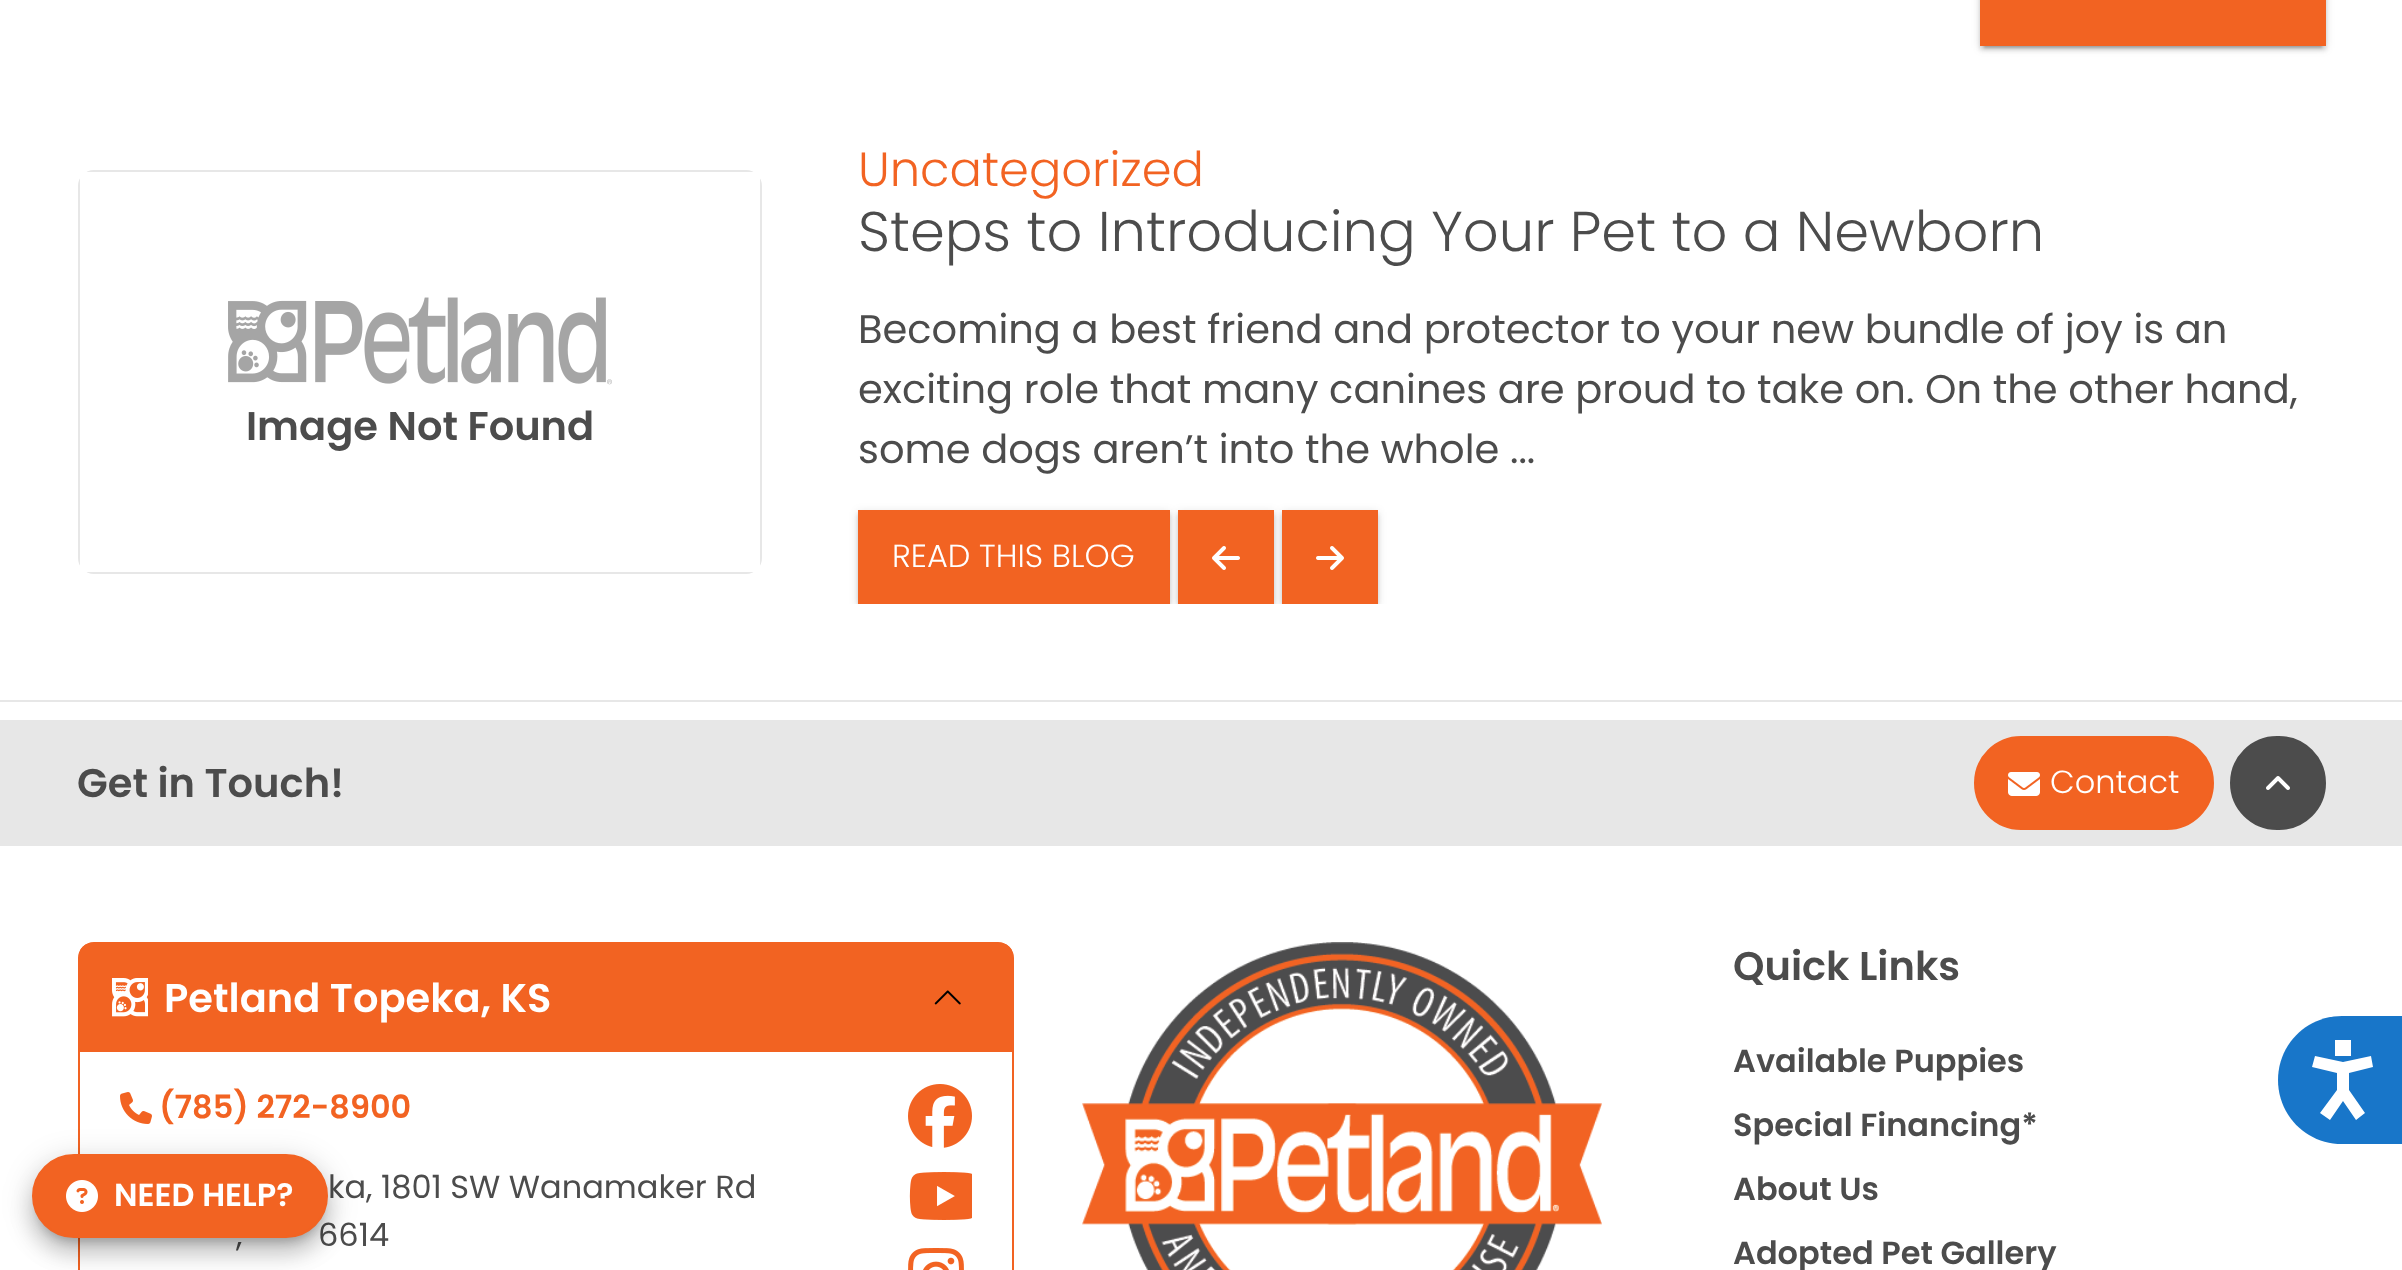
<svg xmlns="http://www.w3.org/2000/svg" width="2402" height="1270">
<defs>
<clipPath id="clip1"><rect x="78" y="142" width="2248" height="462"/></clipPath>
<clipPath id="clip2"><rect x="78" y="942" width="936" height="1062" rx="16"/></clipPath>
</defs>
<rect width="100%" height="100%" fill="#fff"/>
<rect x="1980" y="-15" width="346" height="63" fill="#0000001f" filter="blur(5px)"/>
<rect x="1980" y="-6" width="346" height="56" fill="#00000024" filter="blur(2px)"/>
<rect x="1984" y="-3" width="338" height="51" fill="#00000033" filter="blur(1px)"/>
<rect x="1980" width="346" height="46" fill="#f26322"/>
<rect x="79" y="171" width="682" height="402" rx="15" fill="none" stroke="#e7e7e7" stroke-width="2"/>
<rect x="80" y="172" width="680" height="400" fill="#fff"/>
<image x="228" y="297" width="384" height="88" href="media/1.png"/>
<text x="246" y="440" style="font-family:Poppins;font-size:40px;font-weight:600;fill:#4c4c4c">Image Not Found</text>
<text x="858" y="186" style="font-family:Poppins;font-size:48px;font-weight:300;fill:#f26322">Uncategorized</text>
<text x="858" y="251" style="font-family:Poppins;font-size:56px;font-weight:300;fill:#4c4c4c">Steps to Introducing Your Pet to a Newborn</text>
<text x="858" y="343" style="font-family:Poppins;font-size:40px;fill:#4c4c4c">Becoming a best friend and protector to your new bundle of joy is an</text>
<text x="858" y="403" style="font-family:Poppins;font-size:40px;fill:#4c4c4c">exciting role that many canines are proud to take on. On the other hand,</text>
<text x="858" y="463" style="font-family:Poppins;font-size:40px;fill:#4c4c4c">some dogs aren’t into the whole ...</text>
<g clip-path="url(#clip1)">
<rect x="858" y="512" width="312" height="94" fill="#0000001f" filter="blur(5px)"/>
<rect x="858" y="514" width="312" height="94" fill="#00000024" filter="blur(2px)"/>
</g>
<rect x="858" y="510" width="312" height="94" fill="#f26322"/>
<text x="892" y="567" style="font-family:Poppins;font-size:32px;font-weight:300;fill:#fff">READ THIS BLOG</text>
<g clip-path="url(#clip1)">
<rect x="1178" y="512" width="96" height="94" fill="#0000001f" filter="blur(5px)"/>
<rect x="1178" y="514" width="96" height="94" fill="#00000024" filter="blur(2px)"/>
</g>
<rect x="1178" y="510" width="96" height="94" fill="#f26322"/>
<image x="1212" y="546" width="28" height="24" href="media/2.png"/>
<g clip-path="url(#clip1)">
<rect x="1282" y="512" width="96" height="94" fill="#0000001f" filter="blur(5px)"/>
<rect x="1282" y="514" width="96" height="94" fill="#00000024" filter="blur(2px)"/>
</g>
<rect x="1282" y="510" width="96" height="94" fill="#f26322"/>
<image x="1316" y="546" width="28" height="24" href="media/3.png"/>
<rect y="700" width="2402" height="2" fill="#e7e7e7"/>
<rect y="720" width="2402" height="126" fill="#e7e7e7"/>
<text x="77" y="797" style="font-family:Poppins;font-size:40px;font-weight:600;fill:#4c4c4c">Get in Touch!</text>
<rect x="1975" y="737" width="238" height="92" rx="46" fill="#f26322" stroke="#f26322" stroke-width="2"/>
<image x="2008" y="772" width="32" height="24" href="media/4.png"/>
<text x="2050" y="793" style="font-family:Poppins;font-size:32px;font-weight:300;fill:#fff">Contact</text>
<rect x="2231" y="737" width="94" height="92" rx="46" fill="#4c4c4c" stroke="#4c4c4c" stroke-width="2"/>
<image x="2266" y="776" width="24" height="14" href="media/5.png"/>
<rect x="79" y="943" width="934" height="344" rx="15" fill="none" stroke="#f26322" stroke-width="2"/>
<g clip-path="url(#clip2)">
<rect x="80" y="944" width="932" height="108" fill="#f26322"/>
</g>
<image x="112" y="978" width="36" height="39" href="media/6.png"/>
<text x="164" y="1012" style="font-family:Poppins;font-size:40px;font-weight:600;fill:#fff">Petland Topeka, KS</text>
<image x="934" y="990" width="27" height="15" href="media/7.png"/>
<image x="120" y="1092" width="32" height="32" href="media/8.png"/>
<text x="159" y="1118" style="font-family:Poppins;font-size:32px;font-weight:600;fill:#f26322">(785) 272-8900</text>
<text x="328" y="1198" style="font-family:Poppins;font-size:32px;fill:#4c4c4c">ka, 1801 SW Wanamaker Rd</text>
<text x="236" y="1246" style="font-family:Poppins;font-size:32px;fill:#4c4c4c">,</text>
<text x="318" y="1246" style="font-family:Poppins;font-size:32px;fill:#4c4c4c">6614</text>
<image x="908" y="1084" width="64" height="64" href="media/9.png"/>
<image x="909" y="1172" width="63" height="48" href="media/10.png"/>
<image x="908" y="1248" width="56" height="22" href="media/11.png"/>
<image x="1082" y="942" width="520" height="328" href="media/12.png"/>
<text x="1733" y="980" style="font-family:Poppins;font-size:40px;font-weight:600;fill:#4c4c4c">Quick Links</text>
<text x="1733" y="1072" style="font-family:Poppins;font-size:32px;font-weight:600;fill:#4c4c4c">Available Puppies</text>
<text x="1733" y="1136" style="font-family:Poppins;font-size:32px;font-weight:600;fill:#4c4c4c">Special Financing*</text>
<text x="1733" y="1200" style="font-family:Poppins;font-size:32px;font-weight:600;fill:#4c4c4c">About Us</text>
<text x="1733" y="1264" style="font-family:Poppins;font-size:32px;font-weight:600;fill:#4c4c4c">Adopted Pet Gallery</text>
<path d="M2342 1016h60v128h-60c-35.5 0-64-28.5-64-64c0-35.5 28.5-64 64-64z" fill="#1876c9"/>
<path d="M2337 1073l-25-6l3-11l28 6l28-6l2 11l-24 6v17l16 23l-9 7l-13-19l-13 19l-10-7l17-23zm-2-33h16v16h-16z" fill="#fff"/>
<rect x="28" y="1156" width="304" height="92" rx="46" fill="#0000001f" filter="blur(14px)"/>
<rect x="30" y="1168" width="300" height="88" rx="44" fill="#00000024" filter="blur(10px)"/>
<rect x="38" y="1170" width="284" height="72" rx="36" fill="#00000033" filter="blur(5px)"/>
<rect x="33" y="1155" width="294" height="82" rx="41" fill="#f26322" stroke="#f26322" stroke-width="2"/>
<image x="66" y="1180" width="32" height="32" href="media/13.png"/>
<text x="114" y="1206" style="font-family:Poppins;font-size:32px;font-weight:600;fill:#fff">NEED HELP?</text>
</svg>
